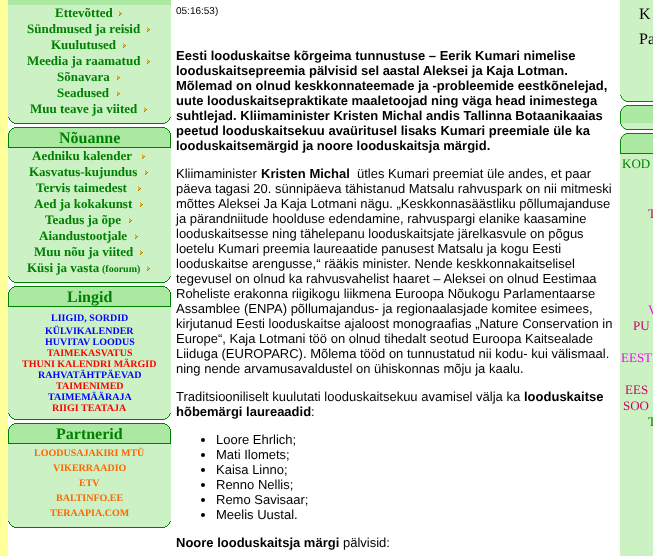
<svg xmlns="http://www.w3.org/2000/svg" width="653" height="556">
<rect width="100%" height="100%" fill="#ff9"/>
<rect x="8" width="645" height="556" fill="#fff"/>
<rect x="8" width="163" height="5" fill="#abe9a3"/>
<rect x="8" y="5" width="163" height="112" fill="#cbf1c5"/>
<text x="55" y="17" style="font-family:Liberation Serif;font-size:13px;font-weight:bold;fill:#008000">Ettevõtted</text>
<image x="119" y="11" width="3" height="5" href="media/1.png"/>
<text x="27" y="33" style="font-family:Liberation Serif;font-size:13px;font-weight:bold;fill:#008000">Sündmused ja reisid</text>
<image x="147" y="27" width="3" height="5" href="media/1.png"/>
<text x="51" y="49" style="font-family:Liberation Serif;font-size:13px;font-weight:bold;fill:#008000">Kuulutused</text>
<image x="123" y="43" width="3" height="5" href="media/1.png"/>
<text x="27" y="65" style="font-family:Liberation Serif;font-size:13px;font-weight:bold;fill:#008000">Meedia ja raamatud</text>
<image x="147" y="59" width="3" height="5" href="media/1.png"/>
<text x="57" y="81" style="font-family:Liberation Serif;font-size:13px;font-weight:bold;fill:#008000">Sõnavara</text>
<image x="117" y="75" width="3" height="5" href="media/1.png"/>
<text x="57" y="97" style="font-family:Liberation Serif;font-size:13px;font-weight:bold;fill:#008000">Seadused</text>
<image x="117" y="91" width="3" height="5" href="media/1.png"/>
<text x="30" y="113" style="font-family:Liberation Serif;font-size:13px;font-weight:bold;fill:#008000">Muu teave ja viited</text>
<image x="144" y="107" width="3" height="5" href="media/1.png"/>
<image x="8" y="117" width="163" height="7" href="media/2.png"/>
<image x="8" y="127" width="163" height="21" href="media/3.png"/>
<text x="59" y="143" style="font-family:Liberation Serif;font-size:16px;font-weight:bold;fill:#008000">Nõuanne</text>
<rect x="8" y="148" width="163" height="128" fill="#cbf1c5"/>
<text x="32" y="160" style="font-family:Liberation Serif;font-size:13px;font-weight:bold;fill:#008000">Aedniku kalender</text>
<image x="142" y="154" width="3" height="5" href="media/1.png"/>
<text x="29" y="176" style="font-family:Liberation Serif;font-size:13px;font-weight:bold;fill:#008000">Kasvatus-kujundus</text>
<image x="145" y="170" width="3" height="5" href="media/1.png"/>
<text x="36" y="192" style="font-family:Liberation Serif;font-size:13px;font-weight:bold;fill:#008000">Tervis taimedest</text>
<image x="138" y="186" width="3" height="5" href="media/1.png"/>
<text x="34" y="208" style="font-family:Liberation Serif;font-size:13px;font-weight:bold;fill:#008000">Aed ja kokakunst</text>
<image x="140" y="202" width="3" height="5" href="media/1.png"/>
<text x="45" y="224" style="font-family:Liberation Serif;font-size:13px;font-weight:bold;fill:#008000">Teadus ja õpe</text>
<image x="129" y="218" width="3" height="5" href="media/1.png"/>
<text x="39" y="240" style="font-family:Liberation Serif;font-size:13px;font-weight:bold;fill:#008000">Aiandustootjale</text>
<image x="135" y="234" width="3" height="5" href="media/1.png"/>
<text x="34" y="256" style="font-family:Liberation Serif;font-size:13px;font-weight:bold;fill:#008000">Muu nõu ja viited</text>
<image x="140" y="250" width="3" height="5" href="media/1.png"/>
<text x="27" y="272" style="font-family:Liberation Serif;font-size:13px;font-weight:bold;fill:#008000">Küsi ja vasta</text>
<text x="102" y="272" style="font-family:Liberation Serif;font-size:10px;font-weight:bold;fill:#008000">(foorum)</text>
<image x="147" y="266" width="3" height="5" href="media/1.png"/>
<image x="8" y="276" width="163" height="7" href="media/2.png"/>
<image x="8" y="286" width="163" height="21" href="media/3.png"/>
<text x="67" y="302" style="font-family:Liberation Serif;font-size:16px;font-weight:bold;fill:#008000">Lingid</text>
<rect x="8" y="307" width="163" height="106" fill="#cbf1c5"/>
<text x="51" y="321" style="font-family:Liberation Serif;font-size:10px;font-weight:bold;fill:#00f">LIIGID, SORDID</text>
<text x="45" y="334" style="font-family:Liberation Serif;font-size:10px;font-weight:bold;fill:#00f">KÜLVIKALENDER</text>
<text x="45" y="345" style="font-family:Liberation Serif;font-size:10px;font-weight:bold;fill:#00f">HUVITAV LOODUS</text>
<text x="47" y="356" style="font-family:Liberation Serif;font-size:10px;font-weight:bold;fill:#f00">TAIMEKASVATUS</text>
<text x="22" y="367" style="font-family:Liberation Serif;font-size:10px;font-weight:bold;fill:#f00">THUNI KALENDRI MÄRGID</text>
<text x="38" y="378" style="font-family:Liberation Serif;font-size:10px;font-weight:bold;fill:#00f">RAHVATÄHTPÄEVAD</text>
<text x="56" y="389" style="font-family:Liberation Serif;font-size:10px;font-weight:bold;fill:#f00">TAIMENIMED</text>
<text x="48" y="400" style="font-family:Liberation Serif;font-size:10px;font-weight:bold;fill:#00f">TAIMEMÄÄRAJA</text>
<text x="52" y="411" style="font-family:Liberation Serif;font-size:10px;font-weight:bold;fill:#f00">RIIGI TEATAJA</text>
<image x="8" y="413" width="163" height="7" href="media/2.png"/>
<image x="8" y="423" width="163" height="21" href="media/3.png"/>
<text x="56" y="439" style="font-family:Liberation Serif;font-size:16px;font-weight:bold;fill:#008000">Partnerid</text>
<rect x="8" y="444" width="163" height="77" fill="#cbf1c5"/>
<text x="34" y="456" style="font-family:Liberation Serif;font-size:10px;font-weight:bold;fill:#f60">LOODUSAJAKIRI MTÜ</text>
<text x="53" y="471" style="font-family:Liberation Serif;font-size:10px;font-weight:bold;fill:#f60">VIKERRAADIO</text>
<text x="79" y="486" style="font-family:Liberation Serif;font-size:10px;font-weight:bold;fill:#f60">ETV</text>
<text x="56" y="501" style="font-family:Liberation Serif;font-size:10px;font-weight:bold;fill:#f60">BALTINFO.EE</text>
<text x="50" y="516" style="font-family:Liberation Serif;font-size:10px;font-weight:bold;fill:#f60">TERAAPIA.COM</text>
<image x="8" y="521" width="163" height="7" href="media/2.png"/>
<text x="176" y="14" style="font-family:Liberation Sans;font-size:10px;fill:#000">05:16:53)</text>
<text x="176" y="60" style="font-family:Liberation Sans;font-size:13px;font-weight:bold;fill:#000">Eesti looduskaitse kõrgeima tunnustuse – Eerik Kumari nimelise</text>
<text x="176" y="75" style="font-family:Liberation Sans;font-size:13px;font-weight:bold;fill:#000">looduskaitsepreemia pälvisid sel aastal Aleksei ja Kaja Lotman.</text>
<text x="176" y="90" style="font-family:Liberation Sans;font-size:13px;font-weight:bold;fill:#000">Mõlemad on olnud keskkonnateemade ja -probleemide eestkõnelejad,</text>
<text x="176" y="105" style="font-family:Liberation Sans;font-size:13px;font-weight:bold;fill:#000">uute looduskaitsepraktikate maaletoojad ning väga head inimestega</text>
<text x="176" y="120" style="font-family:Liberation Sans;font-size:13px;font-weight:bold;fill:#000">suhtlejad. Kliimaminister Kristen Michal andis Tallinna Botaanikaaias</text>
<text x="176" y="135" style="font-family:Liberation Sans;font-size:13px;font-weight:bold;fill:#000">peetud looduskaitsekuu avaüritusel lisaks Kumari preemiale üle ka</text>
<text x="176" y="150" style="font-family:Liberation Sans;font-size:13px;font-weight:bold;fill:#000">looduskaitsemärgid ja noore looduskaitsja märgid.</text>
<text x="176" y="178" style="font-family:Liberation Sans;font-size:13px;fill:#000">Kliimaminister</text>
<text x="261" y="178" style="font-family:Liberation Sans;font-size:13px;font-weight:bold;fill:#000">Kristen Michal</text>
<text x="357" y="178" style="font-family:Liberation Sans;font-size:13px;fill:#000">ütles Kumari preemiat üle andes, et paar</text>
<text x="176" y="193" style="font-family:Liberation Sans;font-size:13px;fill:#000">päeva tagasi 20. sünnipäeva tähistanud Matsalu rahvuspark on nii mitmeski</text>
<text x="176" y="208" style="font-family:Liberation Sans;font-size:13px;fill:#000">mõttes Aleksei Ja Kaja Lotmani nägu. „Keskkonnasäästliku põllumajanduse</text>
<text x="176" y="223" style="font-family:Liberation Sans;font-size:13px;fill:#000">ja pärandniitude hoolduse edendamine, rahvuspargi elanike kaasamine</text>
<text x="176" y="238" style="font-family:Liberation Sans;font-size:13px;fill:#000">looduskaitsesse ning tähelepanu looduskaitsjate järelkasvule on põgus</text>
<text x="176" y="253" style="font-family:Liberation Sans;font-size:13px;fill:#000">loetelu Kumari preemia laureaatide panusest Matsalu ja kogu Eesti</text>
<text x="176" y="268" style="font-family:Liberation Sans;font-size:13px;fill:#000">looduskaitse arengusse,“ rääkis minister. Nende keskkonnakaitselisel</text>
<text x="176" y="283" style="font-family:Liberation Sans;font-size:13px;fill:#000">tegevusel on olnud ka rahvusvahelist haaret – Aleksei on olnud Eestimaa</text>
<text x="176" y="298" style="font-family:Liberation Sans;font-size:13px;fill:#000">Roheliste erakonna riigikogu liikmena Euroopa Nõukogu Parlamentaarse</text>
<text x="176" y="313" style="font-family:Liberation Sans;font-size:13px;fill:#000">Assamblee (ENPA) põllumajandus- ja regionaalasjade komitee esimees,</text>
<text x="176" y="328" style="font-family:Liberation Sans;font-size:13px;fill:#000">kirjutanud Eesti looduskaitse ajaloost monograafias „Nature Conservation in</text>
<text x="176" y="343" style="font-family:Liberation Sans;font-size:13px;fill:#000">Europe“, Kaja Lotmani töö on olnud tihedalt seotud Euroopa Kaitsealade</text>
<text x="176" y="358" style="font-family:Liberation Sans;font-size:13px;fill:#000">Liiduga (EUROPARC). Mõlema tööd on tunnustatud nii kodu- kui välismaal.</text>
<text x="176" y="373" style="font-family:Liberation Sans;font-size:13px;fill:#000">ning nende arvamusavaldustel on ühiskonnas mõju ja kaalu.</text>
<text x="176" y="401" style="font-family:Liberation Sans;font-size:13px;fill:#000">Traditsiooniliselt kuulutati looduskaitsekuu avamisel välja ka</text>
<text x="524" y="401" style="font-family:Liberation Sans;font-size:13px;font-weight:bold;fill:#000">looduskaitse</text>
<text x="176" y="416" style="font-family:Liberation Sans;font-size:13px;font-weight:bold;fill:#000">hõbemärgi laureaadid</text>
<text x="311" y="416" style="font-family:Liberation Sans;font-size:13px;fill:#000">:</text>
<circle cx="203" cy="440" r="2" fill="#000"/>
<text x="216" y="444" style="font-family:Liberation Sans;font-size:13px;fill:#000">Loore Ehrlich;</text>
<circle cx="203" cy="455" r="2" fill="#000"/>
<text x="216" y="459" style="font-family:Liberation Sans;font-size:13px;fill:#000">Mati Ilomets;</text>
<circle cx="203" cy="470" r="2" fill="#000"/>
<text x="216" y="474" style="font-family:Liberation Sans;font-size:13px;fill:#000">Kaisa Linno;</text>
<circle cx="203" cy="485" r="2" fill="#000"/>
<text x="216" y="489" style="font-family:Liberation Sans;font-size:13px;fill:#000">Renno Nellis;</text>
<circle cx="203" cy="500" r="2" fill="#000"/>
<text x="216" y="504" style="font-family:Liberation Sans;font-size:13px;fill:#000">Remo Savisaar;</text>
<circle cx="203" cy="515" r="2" fill="#000"/>
<text x="216" y="519" style="font-family:Liberation Sans;font-size:13px;fill:#000">Meelis Uustal.</text>
<text x="176" y="547" style="font-family:Liberation Sans;font-size:13px;font-weight:bold;fill:#000">Noore looduskaitsja märgi</text>
<text x="343" y="547" style="font-family:Liberation Sans;font-size:13px;fill:#000">pälvisid:</text>
<rect x="620" width="33" height="95" fill="#ccf2c4"/>
<text x="639" y="19" style="font-family:Liberation Serif;font-size:16px;fill:#000">K</text>
<text x="639" y="44" style="font-family:Liberation Serif;font-size:16px;fill:#000">Pa</text>
<image x="620" y="95" width="33" height="7" href="media/4.png"/>
<image x="620" y="105" width="33" height="18" href="media/5.png"/>
<image x="620" y="123" width="33" height="7" href="media/4.png"/>
<image x="620" y="133" width="33" height="21" href="media/6.png"/>
<rect x="620" y="154" width="33" height="402" fill="#ccf2c4"/>
<text x="622" y="168" style="font-family:Liberation Serif;font-size:13px;fill:#008000">KOD</text>
<text x="648" y="218" style="font-family:Liberation Serif;font-size:13px;fill:#c06">T</text>
<text x="648" y="314" style="font-family:Liberation Serif;font-size:13px;fill:#f0f">V</text>
<text x="633" y="330" style="font-family:Liberation Serif;font-size:13px;fill:#c06">PU</text>
<text x="621" y="362" style="font-family:Liberation Serif;font-size:13px;fill:#f0f">EEST</text>
<text x="625" y="394" style="font-family:Liberation Serif;font-size:13px;fill:#c06">EES</text>
<text x="623" y="410" style="font-family:Liberation Serif;font-size:13px;fill:#c06">SOO</text>
<text x="648" y="426" style="font-family:Liberation Serif;font-size:13px;fill:#008000">T</text>
</svg>
